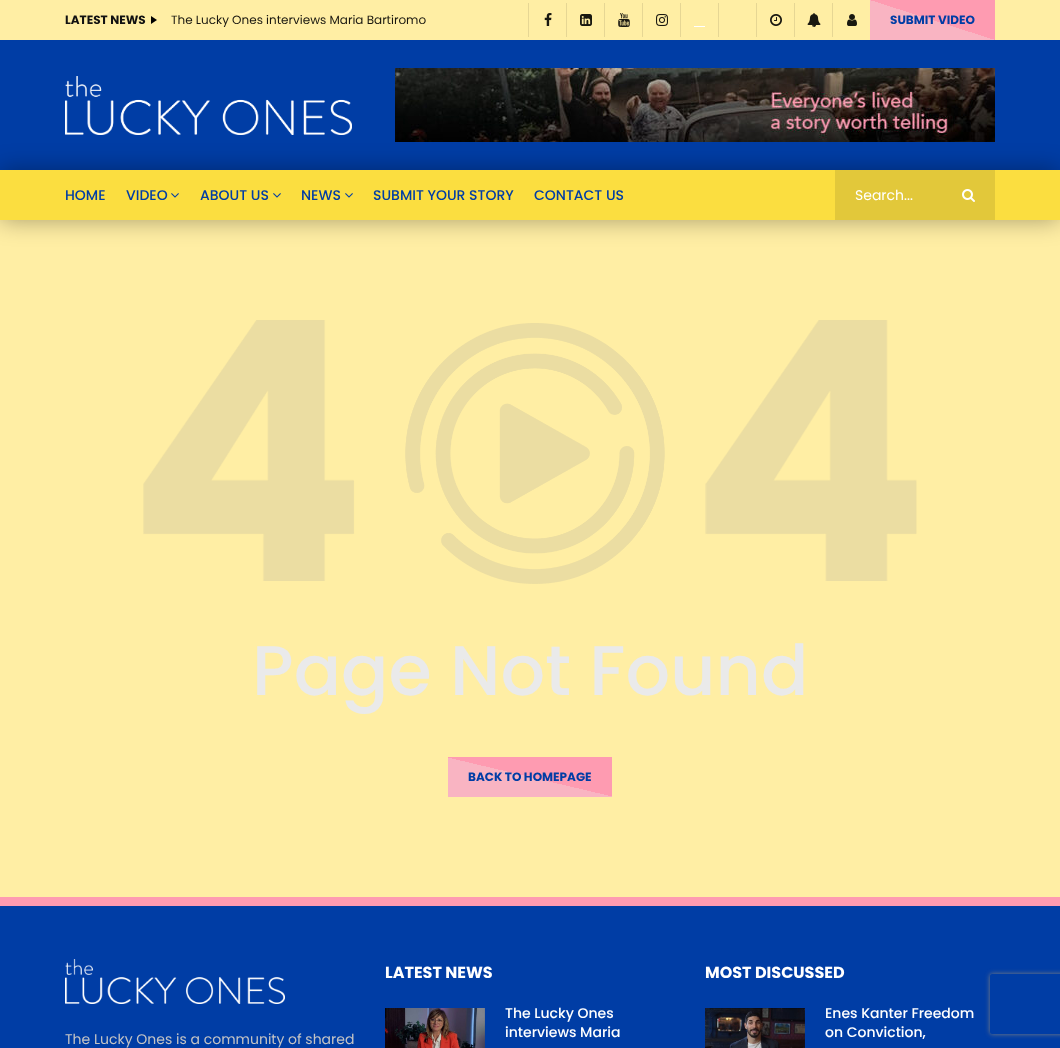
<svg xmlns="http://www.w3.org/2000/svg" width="1060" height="1048">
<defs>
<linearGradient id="g1" gradientUnits="userSpaceOnUse" x1="944" y1="-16" x2="921" y2="56"><stop offset="0.5" stop-color="#fe9bb1"/><stop offset="0.5" stop-color="#f9b4c2"/></linearGradient>
<linearGradient id="g2" gradientUnits="userSpaceOnUse" x1="539" y1="739" x2="521" y2="815"><stop offset="0.5" stop-color="#fe9bb1"/><stop offset="0.5" stop-color="#f9b4c2"/></linearGradient>
<clipPath id="clip1"><path d="M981 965h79v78h-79zm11 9h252c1 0 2 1 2 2v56c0 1-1 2-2 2h-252c-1 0-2-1-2-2v-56c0-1 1-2 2-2z" clip-rule="evenodd"/></clipPath>
</defs>
<rect width="100%" height="100%" fill="#ffeea4"/>
<text x="65" y="24" style="font-family:Poppins;font-size:12px;font-weight:bold;fill:#111">LATEST NEWS</text>
<path d="M151 24v-8l6 4z" fill="#000"/>
<text x="171" y="24" style="font-family:Poppins;font-size:12px;fill:#1a1810">The Lucky Ones interviews Maria Bartiromo</text>
<rect x="528" y="3" width="1" height="34" fill="#e6d694"/>
<image x="544" y="13" width="8" height="13" href="media/1.png"/>
<rect x="566" y="3" width="1" height="34" fill="#e6d694"/>
<image x="580" y="14" width="12" height="12" href="media/2.png"/>
<rect x="604" y="3" width="1" height="34" fill="#e6d694"/>
<image x="618" y="13" width="12" height="14" href="media/3.png"/>
<rect x="642" y="3" width="1" height="34" fill="#e6d694"/>
<image x="656" y="14" width="12" height="12" href="media/4.png"/>
<rect x="680" y="3" width="1" height="34" fill="#e6d694"/>
<rect x="694" y="26" width="11" height="1" fill="#fff"/>
<rect x="718" y="3" width="1" height="34" fill="#e6d694"/>
<rect x="756" y="3" width="1" height="34" fill="#e6d694"/>
<image x="770" y="14" width="12" height="12" href="media/5.png"/>
<rect x="794" y="3" width="1" height="34" fill="#e6d694"/>
<image x="807" y="13" width="14" height="14" href="media/6.png"/>
<rect x="832" y="3" width="1" height="34" fill="#e6d694"/>
<image x="847" y="14" width="10" height="12" href="media/7.png"/>
<rect x="870" width="125" height="40" fill="url(#g1)"/>
<text x="890" y="24" style="font-family:Poppins;font-size:12px;font-weight:bold;fill:#003da5">SUBMIT VIDEO</text>
<rect y="40" width="1060" height="130" fill="#003da5"/>
<image x="65" y="76" width="287" height="59" href="media/8.png"/>
<image x="395" y="68" width="600" height="74" href="media/9.png"/>
<rect y="170" width="1060" height="50" fill="#00000059" filter="blur(12.5px)"/>
<rect y="170" width="1060" height="50" fill="#fbde40"/>
<text x="65" y="200" style="font-family:Poppins;font-size:14px;font-weight:500;fill:#003da5">HOME</text>
<text x="126" y="200" style="font-family:Poppins;font-size:14px;font-weight:500;fill:#003da5">VIDEO</text>
<image x="171" y="193" width="8" height="5" href="media/10.png"/>
<text x="200" y="200" style="font-family:Poppins;font-size:14px;font-weight:500;fill:#003da5">ABOUT US</text>
<image x="273" y="193" width="8" height="5" href="media/10.png"/>
<text x="301" y="200" style="font-family:Poppins;font-size:14px;font-weight:500;fill:#003da5">NEWS</text>
<image x="345" y="193" width="8" height="5" href="media/10.png"/>
<text x="373" y="200" style="font-family:Poppins;font-size:14px;font-weight:500;fill:#003da5">SUBMIT YOUR STORY</text>
<text x="534" y="200" style="font-family:Poppins;font-size:14px;font-weight:500;fill:#003da5">CONTACT US</text>
<rect x="835" y="170" width="160" height="50" fill="#e2c83a"/>
<text x="855" y="200" style="font-family:Poppins;font-size:14px;fill:#fff">Search...</text>
<image x="962" y="189" width="13" height="13" href="media/11.png"/>
<image x="143" y="320" width="774" height="264" href="media/12.png"/>
<text x="252" y="695" style="font-family:Poppins;font-size:70px;font-weight:500;fill:#eaeaea">Page Not Found</text>
<rect x="448" y="757" width="164" height="40" fill="url(#g2)"/>
<text x="468" y="781" style="font-family:Poppins;font-size:12px;font-weight:bold;fill:#003da5">BACK TO HOMEPAGE</text>
<rect y="906" width="1060" height="142" fill="#003da5"/>
<rect y="897" width="1060" height="9" fill="#fe9bb1"/>
<text x="385" y="978" style="font-family:Poppins;font-size:16px;font-weight:bold;fill:#fff">LATEST NEWS</text>
<image x="385" y="1008" width="100" height="40" href="media/13.png"/>
<text x="505" y="1018" style="font-family:Poppins;font-size:14px;font-weight:500;fill:#fff">The Lucky Ones</text>
<text x="505" y="1037" style="font-family:Poppins;font-size:14px;font-weight:500;fill:#fff">interviews Maria</text>
<text x="705" y="978" style="font-family:Poppins;font-size:16px;font-weight:bold;fill:#fff">MOST DISCUSSED</text>
<image x="705" y="1008" width="100" height="40" href="media/14.png"/>
<text x="825" y="1018" style="font-family:Poppins;font-size:14px;font-weight:500;fill:#fff">Enes Kanter Freedom</text>
<text x="825" y="1037" style="font-family:Poppins;font-size:14px;font-weight:500;fill:#fff">on Conviction,</text>
<image x="65" y="959" width="220" height="45" href="media/15.png"/>
<text x="65" y="1044" style="font-family:Poppins;font-size:14px;fill:#c4c4c4">The Lucky Ones is a community of shared</text>
<g clip-path="url(#clip1)">
<rect x="990" y="974" width="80" height="60" rx="2" fill="#808080" filter="blur(2.5px)"/>
</g>
</svg>
